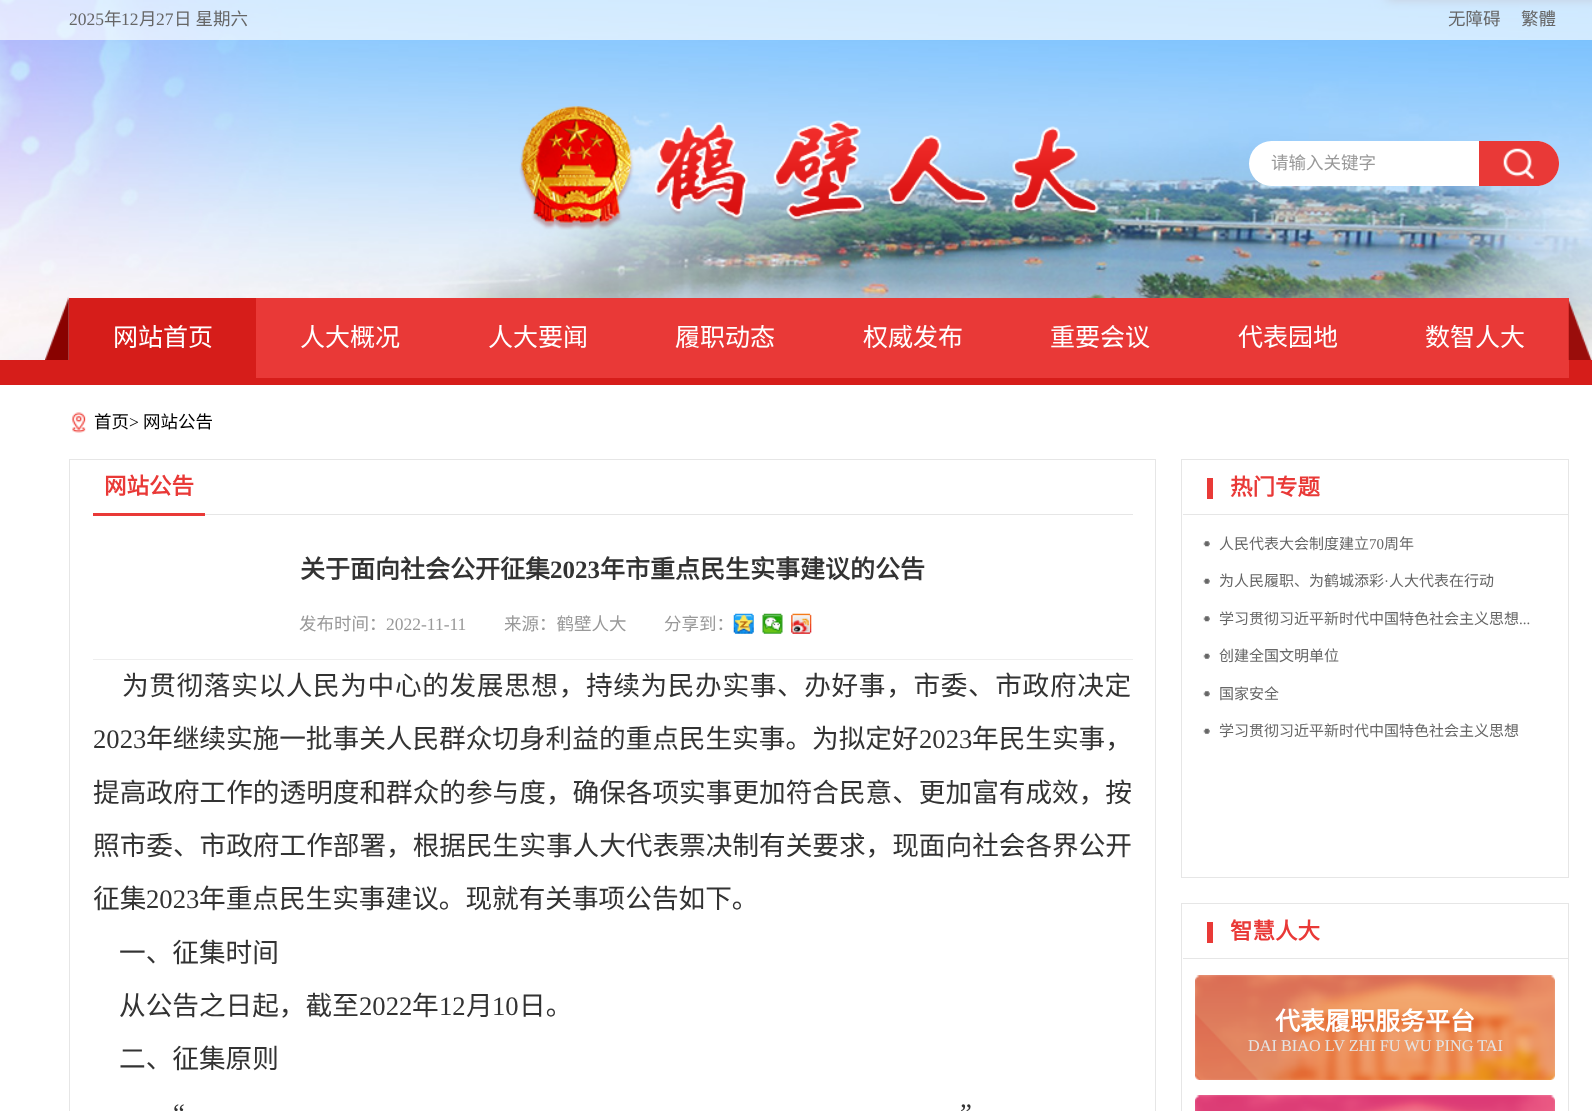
<svg xmlns="http://www.w3.org/2000/svg" width="1592" height="1111">
<rect width="100%" height="100%" fill="#fff"/>
<image x="0" y="0" width="1592" height="360" href="media/1.png"/>
<rect width="1592" height="40" fill="#ffffffa8"/>
<text x="69" y="25" style="font-family:Liberation Serif;font-size:17.5px;fill:#666">2025</text>
<text x="104" y="25" style="font-family:Noto Sans CJK SC;font-size:17.5px;fill:#666">年</text>
<text x="121" y="25" style="font-family:Liberation Serif;font-size:17.5px;fill:#666">12</text>
<text x="139" y="25" style="font-family:Noto Sans CJK SC;font-size:17.5px;fill:#666">月</text>
<text x="156" y="25" style="font-family:Liberation Serif;font-size:17.5px;fill:#666">27</text>
<text x="174" y="25" style="font-family:Noto Sans CJK SC;font-size:17.5px;fill:#666">日 星期六</text>
<text x="1448" y="25" style="font-family:Noto Sans CJK SC;font-size:17.5px;fill:#666">无障碍</text>
<text x="1521" y="25" style="font-family:Noto Sans CJK SC;font-size:17.5px;fill:#666">繁體</text>
<image x="519" y="106" width="580" height="124" href="media/2.png"/>
<rect x="1249" y="141" width="310" height="45" rx="22.5" fill="#fff"/>
<text x="1271" y="169" style="font-family:Noto Sans CJK SC;font-size:17.5px;fill:#999">请输入关键字</text>
<path d="M1479 141h57.5c12.5 0 22.5 10 22.5 22.5c0 12.5-10 22.5-22.5 22.5h-57.5z" fill="#e93937"/>
<image x="1503" y="148" width="31" height="31" href="media/3.png"/>
<rect y="360" width="1592" height="25" fill="#d61d1a"/>
<rect x="256" y="298" width="1313" height="80" fill="#e93937"/>
<image x="45" y="297" width="24" height="63" href="media/4.png"/>
<rect x="69" y="298" width="187" height="62" fill="#d61d1a"/>
<text x="113" y="346" style="font-family:Noto Sans CJK SC;font-size:25px;fill:#fff">网站首页</text>
<text x="300" y="346" style="font-family:Noto Sans CJK SC;font-size:25px;fill:#fff">人大概况</text>
<text x="488" y="346" style="font-family:Noto Sans CJK SC;font-size:25px;fill:#fff">人大要闻</text>
<text x="675" y="346" style="font-family:Noto Sans CJK SC;font-size:25px;fill:#fff">履职动态</text>
<text x="863" y="346" style="font-family:Noto Sans CJK SC;font-size:25px;fill:#fff">权威发布</text>
<text x="1050" y="346" style="font-family:Noto Sans CJK SC;font-size:25px;fill:#fff">重要会议</text>
<text x="1238" y="346" style="font-family:Noto Sans CJK SC;font-size:25px;fill:#fff">代表园地</text>
<text x="1425" y="346" style="font-family:Noto Sans CJK SC;font-size:25px;fill:#fff">数智人大</text>
<image x="1568" y="301" width="24" height="59" href="media/5.png"/>
<image x="71" y="412" width="15" height="21" href="media/6.png"/>
<text x="94" y="428" style="font-family:Noto Sans CJK SC;font-size:17.5px;fill:#000">首页</text>
<text x="129" y="428" style="font-family:Liberation Serif;font-size:17.5px;fill:#000">&gt;</text>
<text x="143" y="428" style="font-family:Noto Sans CJK SC;font-size:17.5px;fill:#000">网站公告</text>
<rect x="69.5" y="459.5" width="1086" height="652" fill="none" stroke="#e6e6e6"/>
<rect x="205" y="514" width="928" height="1" fill="#e6e6e6"/>
<rect x="93" y="513" width="112" height="3" fill="#e93937"/>
<text x="104" y="494" style="font-family:Noto Sans CJK SC;font-size:22.5px;font-weight:bold;fill:#e93937">网站公告</text>
<rect x="93" y="659" width="1040" height="1" fill="#eee"/>
<text x="300" y="578" style="font-family:Noto Sans CJK SC;font-size:25px;font-weight:bold;fill:#333">关于面向社会公开征集</text>
<text x="550" y="578" style="font-family:Liberation Serif;font-size:25px;font-weight:bold;fill:#333">2023</text>
<text x="600" y="578" style="font-family:Noto Sans CJK SC;font-size:25px;font-weight:bold;fill:#333">年市重点民生实事建议的公告</text>
<text x="299" y="630" style="font-family:Noto Sans CJK SC;font-size:17.5px;fill:#999">发布时间：</text>
<text x="386" y="630" style="font-family:Liberation Serif;font-size:17.5px;fill:#999">2022-11-11</text>
<text x="504" y="630" style="font-family:Noto Sans CJK SC;font-size:17.5px;fill:#999">来源：鹤壁人大</text>
<text x="664" y="630" style="font-family:Noto Sans CJK SC;font-size:17.5px;fill:#999">分享到：</text>
<image x="733" y="613" width="21" height="21" href="media/7.png"/>
<image x="762" y="613" width="21" height="21" href="media/8.png"/>
<image x="791" y="613" width="21" height="21" href="media/9.png"/>
<text x="122" y="695" style="font-family:Noto Sans CJK SC;font-size:26.65px;letter-spacing:0.65px;fill:#333">为贯彻落实以人民为中心的发展思想，持续为民办实事、办好事，市委、市政府决定</text>
<text x="93" y="748" style="font-family:Liberation Serif;font-size:26.65px;fill:#333">2023</text>
<text x="146" y="748" style="font-family:Noto Sans CJK SC;font-size:26.65px;fill:#333">年继续实施一批事关人民群众切身利益的重点民生实事。为拟定好</text>
<text x="919" y="748" style="font-family:Liberation Serif;font-size:26.65px;fill:#333">2023</text>
<text x="972" y="748" style="font-family:Noto Sans CJK SC;font-size:26.65px;fill:#333">年民生实事，</text>
<text x="93" y="802" style="font-family:Noto Sans CJK SC;font-size:26.65px;fill:#333">提高政府工作的透明度和群众的参与度，确保各项实事更加符合民意、更加富有成效，按</text>
<text x="93" y="855" style="font-family:Noto Sans CJK SC;font-size:26.65px;fill:#333">照市委、市政府工作部署，根据民生实事人大代表票决制有关要求，现面向社会各界公开</text>
<text x="93" y="908" style="font-family:Noto Sans CJK SC;font-size:26.65px;fill:#333">征集</text>
<text x="146" y="908" style="font-family:Liberation Serif;font-size:26.65px;fill:#333">2023</text>
<text x="199" y="908" style="font-family:Noto Sans CJK SC;font-size:26.65px;fill:#333">年重点民生实事建议。现就有关事项公告如下。</text>
<text x="119" y="962" style="font-family:Noto Sans CJK SC;font-size:26.65px;fill:#333">一、征集时间</text>
<text x="119" y="1015" style="font-family:Noto Sans CJK SC;font-size:26.65px;fill:#333">从公告之日起，截至</text>
<text x="359" y="1015" style="font-family:Liberation Serif;font-size:26.65px;fill:#333">2022</text>
<text x="412" y="1015" style="font-family:Noto Sans CJK SC;font-size:26.65px;fill:#333">年</text>
<text x="439" y="1015" style="font-family:Liberation Serif;font-size:26.65px;fill:#333">12</text>
<text x="466" y="1015" style="font-family:Noto Sans CJK SC;font-size:26.65px;fill:#333">月</text>
<text x="492" y="1015" style="font-family:Liberation Serif;font-size:26.65px;fill:#333">10</text>
<text x="519" y="1015" style="font-family:Noto Sans CJK SC;font-size:26.65px;fill:#333">日。</text>
<text x="119" y="1068" style="font-family:Noto Sans CJK SC;font-size:26.65px;fill:#333">二、征集原则</text>
<text x="173" y="1122" style="font-family:Liberation Serif;font-size:26.65px;fill:#333">“</text>
<text x="960" y="1122" style="font-family:Liberation Serif;font-size:26.65px;fill:#333">”</text>
<rect x="1181.5" y="459.5" width="387" height="418" fill="none" stroke="#e6e6e6"/>
<rect x="1183" y="514" width="385" height="1" fill="#e6e6e6"/>
<rect x="1207" y="478" width="6" height="21" fill="#e93a37"/>
<text x="1230" y="495" style="font-family:Noto Sans CJK SC;font-size:22.5px;font-weight:bold;fill:#e93937">热门专题</text>
<image x="1203" y="541" width="7" height="6" href="media/10.png"/>
<text x="1219" y="549" style="font-family:Noto Sans CJK SC;font-size:15px;fill:#666">人民代表大会制度建立</text>
<text x="1369" y="549" style="font-family:Liberation Serif;font-size:15px;fill:#666">70</text>
<text x="1384" y="549" style="font-family:Noto Sans CJK SC;font-size:15px;fill:#666">周年</text>
<image x="1203" y="578" width="7" height="6" href="media/11.png"/>
<text x="1219" y="586" style="font-family:Noto Sans CJK SC;font-size:15px;fill:#666">为人民履职、为鹤城添彩</text>
<text x="1384" y="586" style="font-family:Liberation Serif;font-size:15px;fill:#666">·</text>
<text x="1389" y="586" style="font-family:Noto Sans CJK SC;font-size:15px;fill:#666">人大代表在行动</text>
<image x="1203" y="616" width="7" height="6" href="media/10.png"/>
<text x="1219" y="624" style="font-family:Noto Sans CJK SC;font-size:15px;fill:#666">学习贯彻习近平新时代中国特色社会主义思想</text>
<text x="1519" y="624" style="font-family:Liberation Serif;font-size:15px;fill:#666">...</text>
<image x="1203" y="653" width="7" height="6" href="media/11.png"/>
<text x="1219" y="661" style="font-family:Noto Sans CJK SC;font-size:15px;fill:#666">创建全国文明单位</text>
<image x="1203" y="691" width="7" height="6" href="media/10.png"/>
<text x="1219" y="699" style="font-family:Noto Sans CJK SC;font-size:15px;fill:#666">国家安全</text>
<image x="1203" y="728" width="7" height="6" href="media/11.png"/>
<text x="1219" y="736" style="font-family:Noto Sans CJK SC;font-size:15px;fill:#666">学习贯彻习近平新时代中国特色社会主义思想</text>
<rect x="1181.5" y="903.5" width="387" height="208" fill="none" stroke="#e6e6e6"/>
<rect x="1183" y="958" width="385" height="1" fill="#e6e6e6"/>
<rect x="1207" y="922" width="6" height="21" fill="#e93a37"/>
<text x="1230" y="939" style="font-family:Noto Sans CJK SC;font-size:22.5px;font-weight:bold;fill:#e93937">智慧人大</text>
<image x="1195" y="975" width="360" height="105" href="media/12.png"/>
<text x="1275" y="1030" style="font-family:Noto Sans CJK SC;font-size:25px;font-weight:bold;fill:#fff">代表履职服务平台</text>
<text x="1248" y="1051" style="font-family:Liberation Serif;font-size:16.25px;fill:#e5e5e5">DAI BIAO LV ZHI FU WU PING TAI</text>
<image x="1195" y="1095" width="360" height="16" href="media/13.png"/>
</svg>
